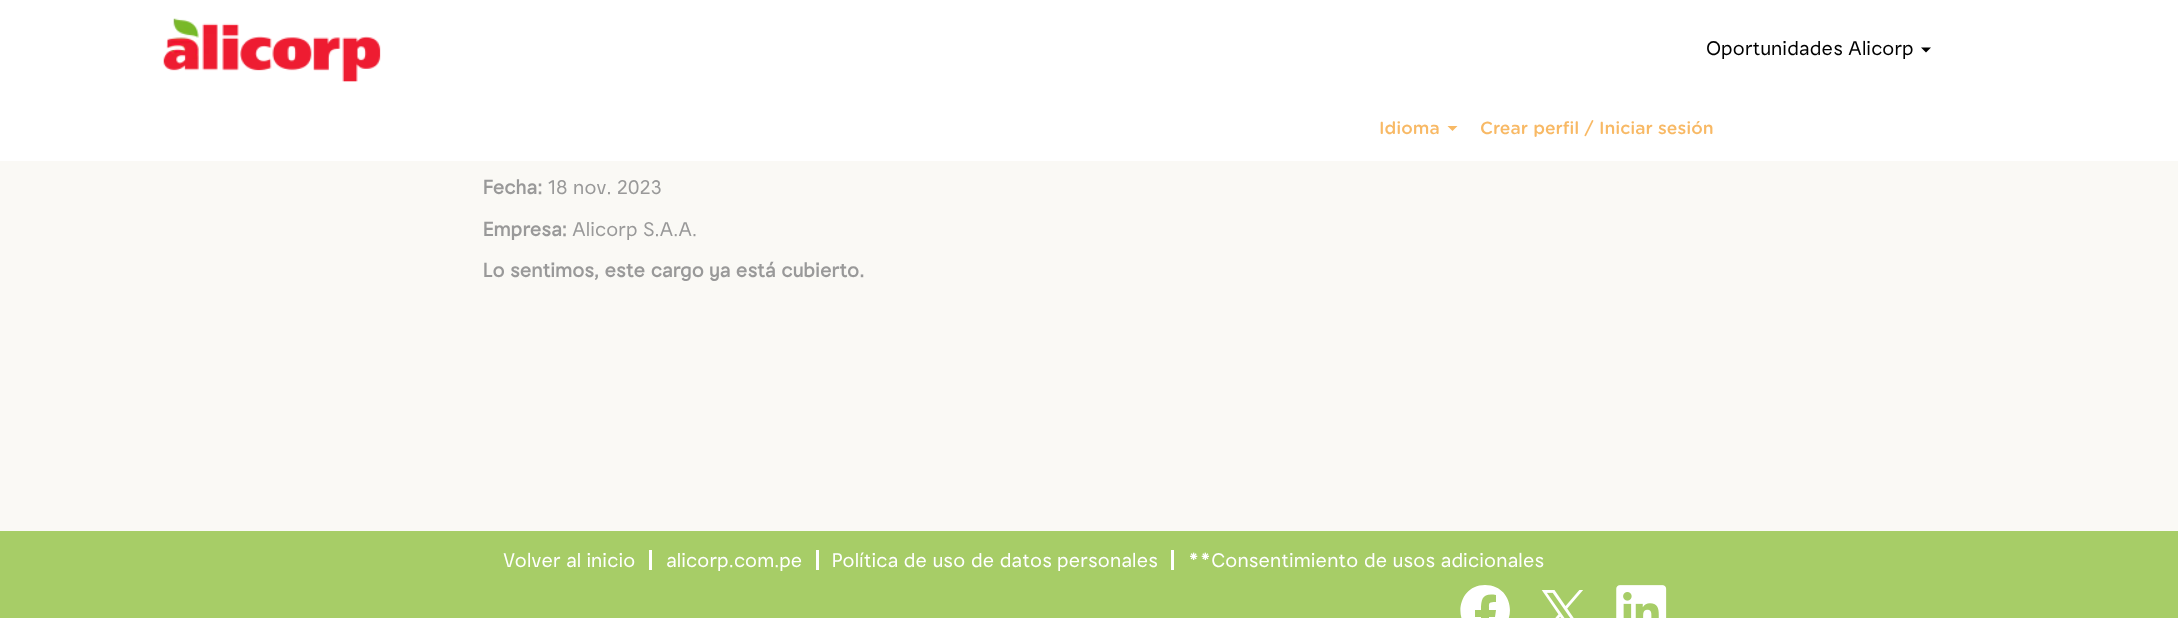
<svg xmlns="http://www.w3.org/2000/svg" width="2178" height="618">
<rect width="100%" height="100%" fill="#faf9f5"/>
<rect width="2178" height="161" fill="#fff"/>
<image x="163" y="18" width="218" height="64" href="media/1.png"/>
<text x="1706" y="55" style="font-family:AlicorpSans;font-size:20px;fill:#000">Oportunidades Alicorp</text>
<path d="M1921 47.5h10l-5 5z" fill="#000"/>
<text x="1379" y="134" style="font-family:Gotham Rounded;font-size:17.5px;font-weight:500;fill:#f8b965">Idioma</text>
<path d="M1447.5 126h10l-5 5z" fill="#f8b965"/>
<text x="1480" y="134" style="font-family:Gotham Rounded;font-size:17.5px;font-weight:500;fill:#f8b965">Crear perfil / Iniciar sesión</text>
<text x="483" y="194" style="font-family:AlicorpSans;font-size:20px;font-weight:bold;fill:#999">Fecha:</text>
<text x="548" y="194" style="font-family:AlicorpSans;font-size:20px;fill:#999">18 nov. 2023</text>
<text x="483" y="236" style="font-family:AlicorpSans;font-size:20px;font-weight:bold;fill:#999">Empresa:</text>
<text x="572" y="236" style="font-family:AlicorpSans;font-size:20px;fill:#999">Alicorp S.A.A.</text>
<text x="483" y="277" style="font-family:AlicorpSans;font-size:20px;font-weight:bold;fill:#999">Lo sentimos, este cargo ya está cubierto.</text>
<rect y="531" width="2178" height="87" fill="#a7cd67"/>
<rect x="649" y="550" width="3" height="20" fill="#fff"/>
<text x="503" y="567" style="font-family:AlicorpSans;font-size:20px;fill:#fff">Volver al inicio</text>
<rect x="816" y="550" width="3" height="20" fill="#fff"/>
<text x="666" y="567" style="font-family:AlicorpSans;font-size:20px;fill:#fff">alicorp.com.pe</text>
<rect x="1171" y="550" width="3" height="20" fill="#fff"/>
<text x="832" y="567" style="font-family:AlicorpSans;font-size:20px;fill:#fff">Política de uso de datos personales</text>
<text x="1188" y="567" style="font-family:AlicorpSans;font-size:20px;fill:#fff">**Consentimiento de usos adicionales</text>
<path d="M1485 585c-30 0-34 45-4 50v-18h-6v-7h6c0-12 2-17 15-15v7c-8 0-7 1-7 8h7l-1 7h-6v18c30-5 27-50-4-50z" fill="#fff"/>
<image x="1541" y="590" width="42" height="28" href="media/2.png"/>
<image x="1616" y="585" width="51" height="33" href="media/3.png"/>
</svg>
